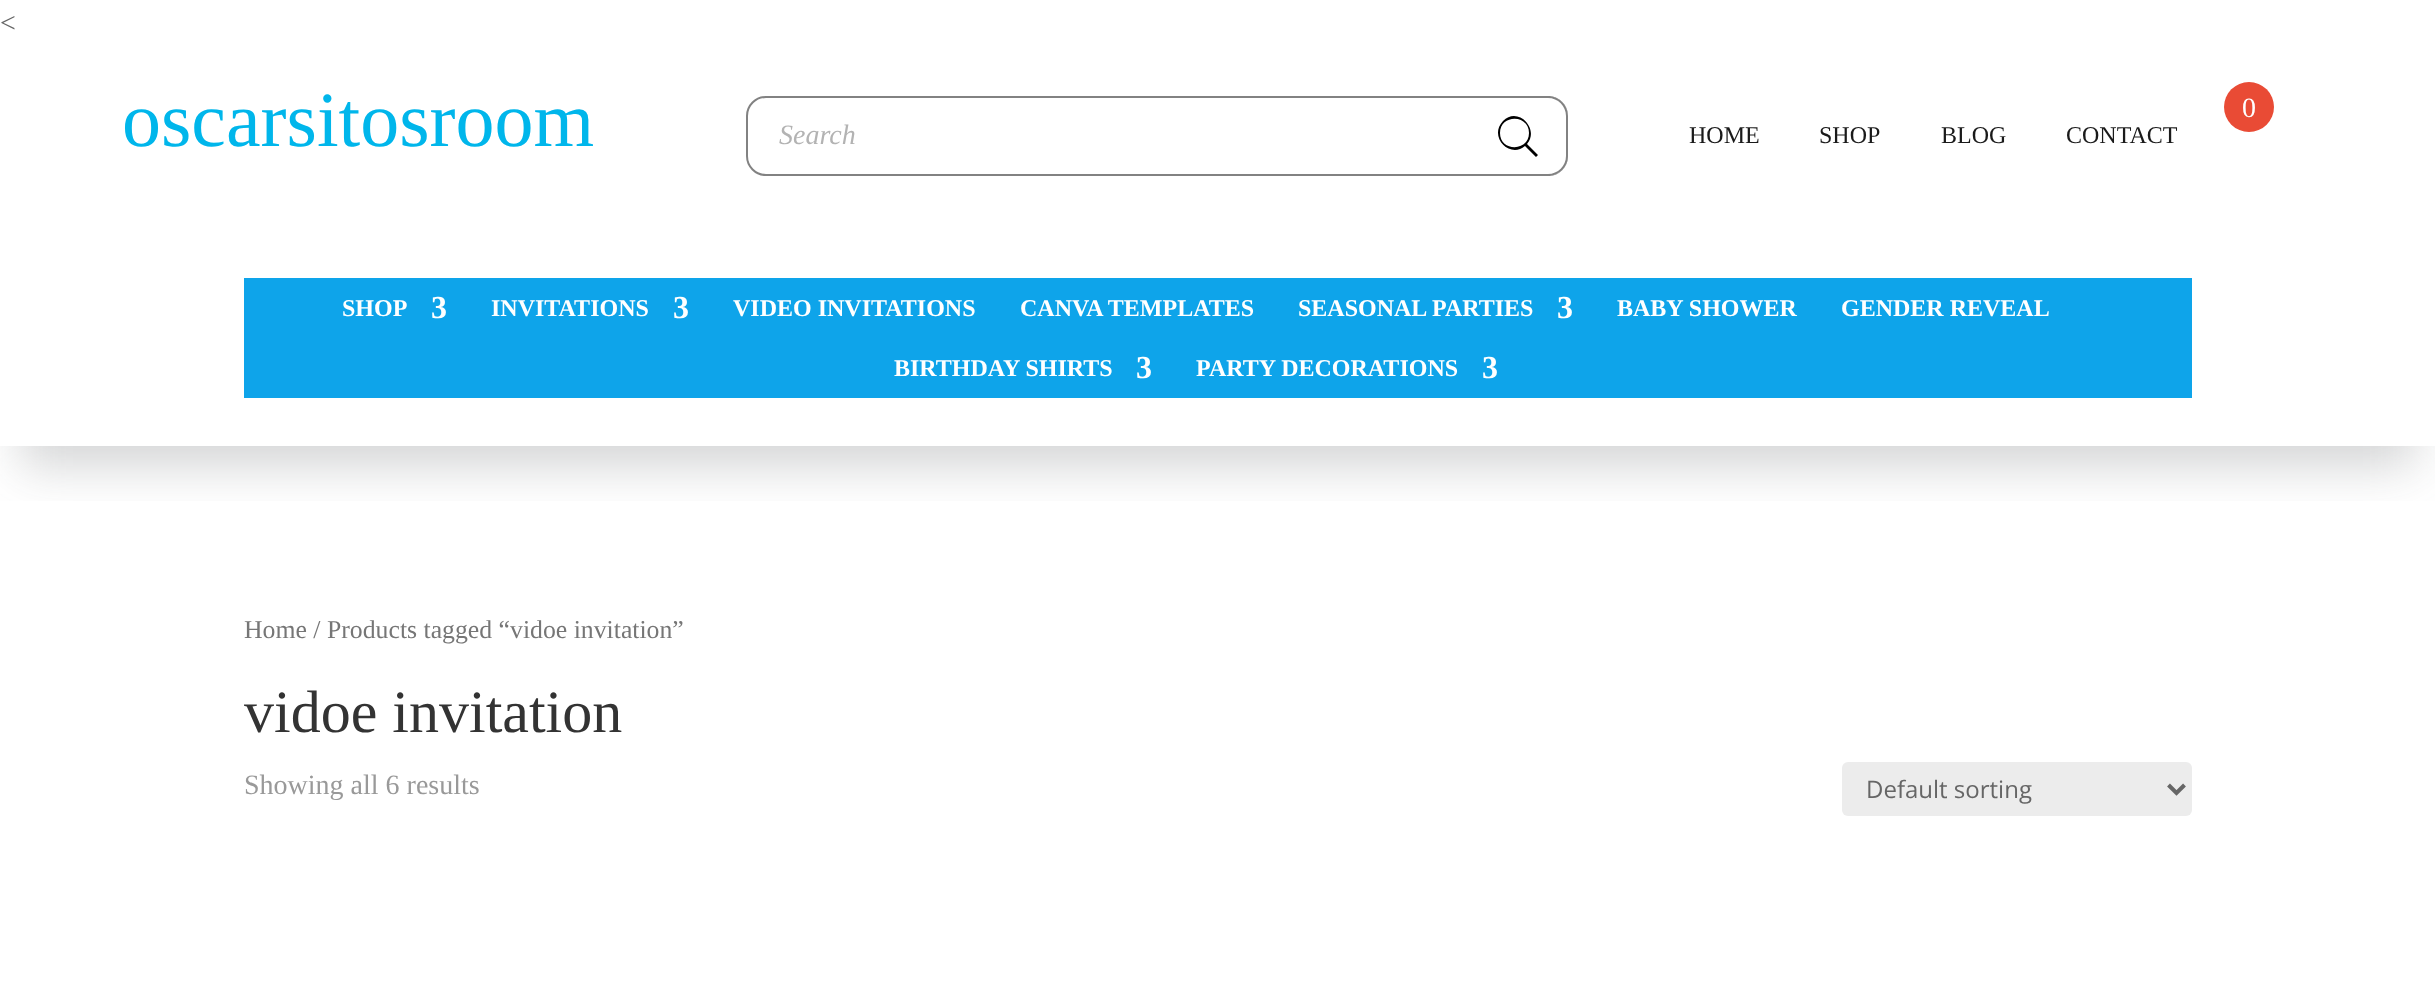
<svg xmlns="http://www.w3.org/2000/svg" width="2435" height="988">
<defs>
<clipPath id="clip1"><rect x="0" y="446" width="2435" height="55"/></clipPath>
</defs>
<rect width="100%" height="100%" fill="#fff"/>
<text x="0" y="32" style="font-family:Liberation Serif;font-size:28px;fill:#666">&lt;</text>
<text x="122" y="146" style="font-family:Liberation Serif;font-size:78px;fill:#00b6eb">oscarsitosroom</text>
<rect x="747" y="97" width="820" height="78" rx="19" fill="none" stroke="#828282" stroke-width="2"/>
<text x="779" y="144" style="font-family:Liberation Serif;font-size:28px;font-style:italic;fill:#b3b3b3">Search</text>
<path d="M1468 96h80c11 0 20 9 20 20v40c0 11-9 20-20 20h-80z" fill="#fff"/>
<path d="M1468 96h80c11 0 20 9 20 20v40c0 11-9 20-20 20h-80zm0 2h80c10 0 18 8 18 18v40c0 10-8 18-18 18h-80z" fill="#828282" fill-rule="evenodd"/>
<path d="M1538 155l-11-11c13-15-9-38-24-23c-15 16 7 38 22 25l11 11zm-38-22c0-19 29-19 29 0c0 19-29 19-29 0z" fill="#000"/>
<circle cx="2249" cy="107" r="25" fill="#e94b35"/>
<text x="2242" y="117" style="font-family:Liberation Serif;font-size:28px;fill:#fff">0</text>
<text x="1689" y="143" style="font-family:Liberation Serif;font-size:24px;fill:#1a1a1a">HOME</text>
<text x="1819" y="143" style="font-family:Liberation Serif;font-size:24px;fill:#1a1a1a">SHOP</text>
<text x="1941" y="143" style="font-family:Liberation Serif;font-size:24px;fill:#1a1a1a">BLOG</text>
<text x="2066" y="143" style="font-family:Liberation Serif;font-size:24px;fill:#1a1a1a">CONTACT</text>
<g clip-path="url(#clip1)">
<rect x="20" y="290" width="2396" height="176" fill="#464d503d" filter="blur(25px)"/>
</g>
<rect x="244" y="278" width="1948" height="120" fill="#0ea4ea"/>
<text x="342" y="316" style="font-family:Liberation Serif;font-size:24px;font-weight:bold;fill:#fff">SHOP</text>
<text x="431" y="318" style="font-family:Liberation Serif;font-size:32px;font-weight:bold;fill:#fff">3</text>
<text x="491" y="316" style="font-family:Liberation Serif;font-size:24px;font-weight:bold;fill:#fff">INVITATIONS</text>
<text x="673" y="318" style="font-family:Liberation Serif;font-size:32px;font-weight:bold;fill:#fff">3</text>
<text x="733" y="316" style="font-family:Liberation Serif;font-size:24px;font-weight:bold;fill:#fff">VIDEO INVITATIONS</text>
<text x="1020" y="316" style="font-family:Liberation Serif;font-size:24px;font-weight:bold;fill:#fff">CANVA TEMPLATES</text>
<text x="1298" y="316" style="font-family:Liberation Serif;font-size:24px;font-weight:bold;fill:#fff">SEASONAL PARTIES</text>
<text x="1557" y="318" style="font-family:Liberation Serif;font-size:32px;font-weight:bold;fill:#fff">3</text>
<text x="1617" y="316" style="font-family:Liberation Serif;font-size:24px;font-weight:bold;fill:#fff">BABY SHOWER</text>
<text x="1841" y="316" style="font-family:Liberation Serif;font-size:24px;font-weight:bold;fill:#fff">GENDER REVEAL</text>
<text x="894" y="376" style="font-family:Liberation Serif;font-size:24px;font-weight:bold;fill:#fff">BIRTHDAY SHIRTS</text>
<text x="1136" y="378" style="font-family:Liberation Serif;font-size:32px;font-weight:bold;fill:#fff">3</text>
<text x="1196" y="376" style="font-family:Liberation Serif;font-size:24px;font-weight:bold;fill:#fff">PARTY DECORATIONS</text>
<text x="1482" y="378" style="font-family:Liberation Serif;font-size:32px;font-weight:bold;fill:#fff">3</text>
<text x="244" y="638" style="font-family:Liberation Serif;font-size:25.75px;fill:#767676">Home / Products tagged “vidoe invitation”</text>
<text x="244" y="732" style="font-family:Liberation Serif;font-size:60px;fill:#333">vidoe invitation</text>
<text x="244" y="794" style="font-family:Liberation Serif;font-size:28px;fill:#999">Showing all 6 results</text>
<rect x="1842" y="762" width="350" height="54" rx="6" fill="#ececec"/>
<path d="M2168.5 785l8 8l8-8" fill="none" stroke="#666" stroke-width="4"/>
<text x="1866" y="798" style="font-family:Open Sans;font-size:24px;fill:#666">Default sorting</text>
</svg>
